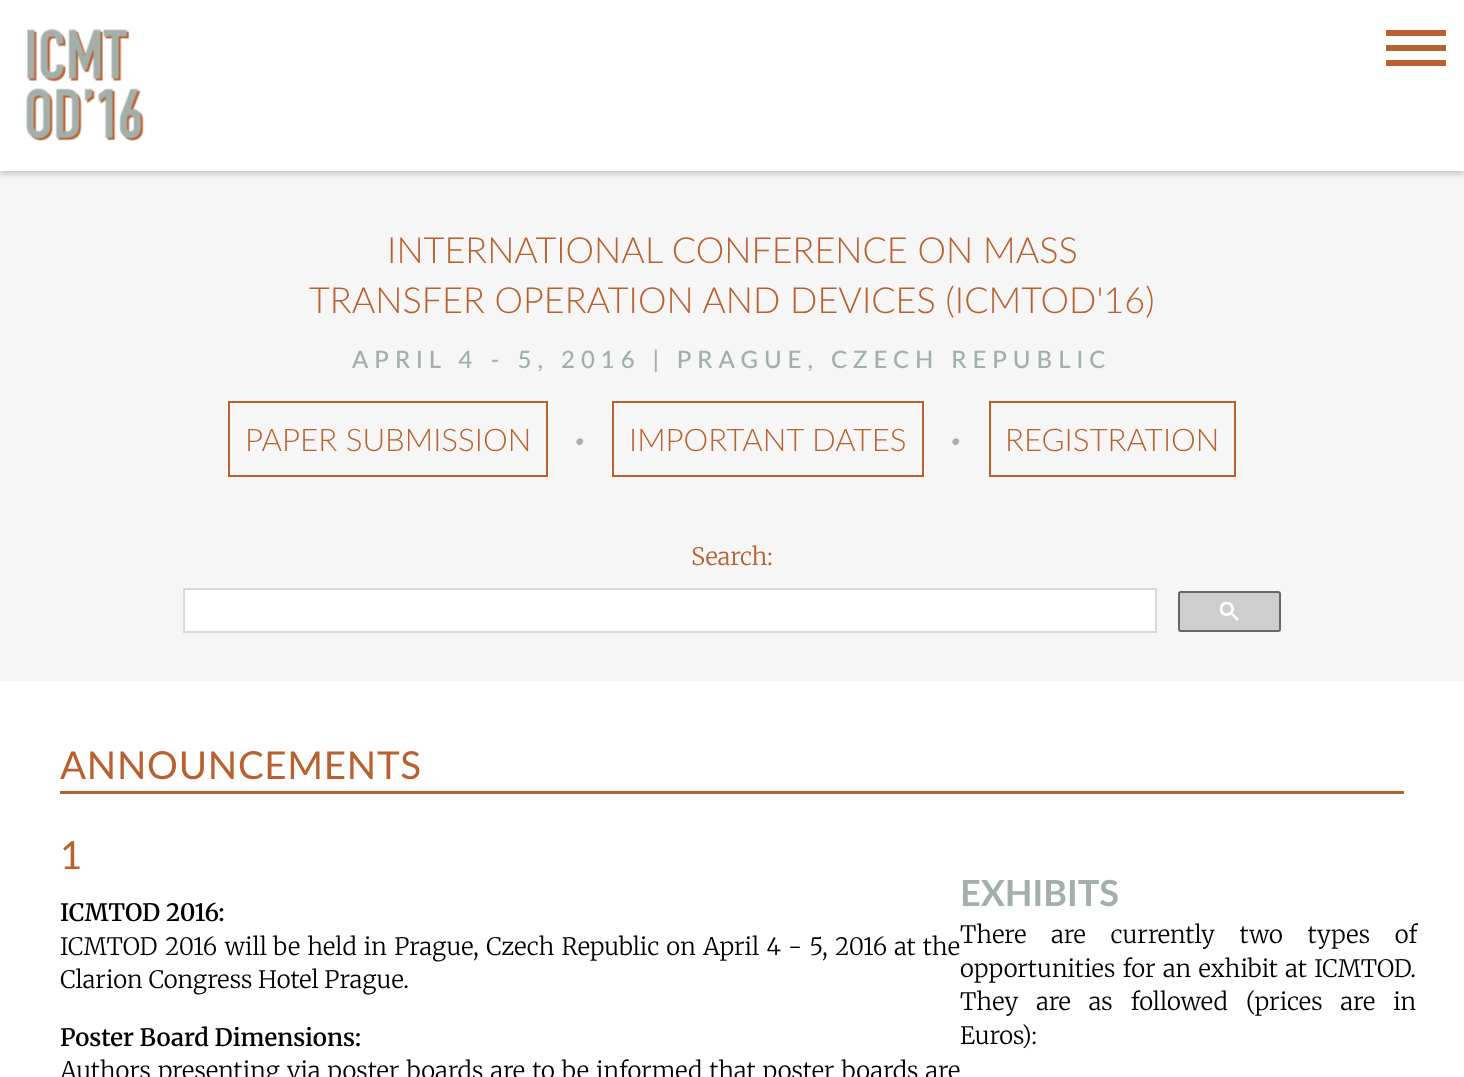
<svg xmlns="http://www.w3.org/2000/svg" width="1464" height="1077">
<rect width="100%" height="100%" fill="#fff"/>
<rect y="171" width="1464" height="510" fill="#f6f6f6"/>
<rect y="3" width="1464" height="171" fill="#00000033" filter="blur(3px)"/>
<rect width="1464" height="171" fill="#fff"/>
<image x="26" y="28" width="118" height="113" href="media/1.png"/>
<path d="M1386 60v6h60v-6zm0-15v6h60v-6zm0-15v6h60v-6z" fill="#b9602f"/>
<text x="387" y="263" style="font-family:Lato;font-size:36px;font-weight:300;fill:#b9602f">INTERNATIONAL CONFERENCE ON MASS</text>
<text x="309" y="313" style="font-family:Lato;font-size:36px;font-weight:300;fill:#b9602f">TRANSFER OPERATION AND DEVICES (ICMTOD'16)</text>
<text x="352" y="368" style="font-family:Lato;font-size:24px;font-weight:500;letter-spacing:6px;fill:#a3afa9">APRIL 4 - 5, 2016 | PRAGUE, CZECH REPUBLIC</text>
<rect x="229" y="402" width="318" height="74" fill="none" stroke="#b9602f" stroke-width="2"/>
<text x="245" y="451" style="font-family:Lato;font-size:31.25px;font-weight:300;fill:#b9602f">PAPER SUBMISSION</text>
<text x="577" y="461" style="font-family:Merriweather;font-size:48px;fill:#a3afa9">·</text>
<rect x="613" y="402" width="310" height="74" fill="none" stroke="#b9602f" stroke-width="2"/>
<text x="629" y="451" style="font-family:Lato;font-size:31.25px;font-weight:300;fill:#b9602f">IMPORTANT DATES</text>
<text x="953" y="461" style="font-family:Merriweather;font-size:48px;fill:#a3afa9">·</text>
<rect x="990" y="402" width="245" height="74" fill="none" stroke="#b9602f" stroke-width="2"/>
<text x="1005" y="451" style="font-family:Lato;font-size:31.25px;font-weight:300;fill:#b9602f">REGISTRATION</text>
<text x="691" y="565" style="font-family:Merriweather;font-size:24px;font-weight:300;fill:#b9602f">Search:</text>
<rect x="184" y="589" width="972" height="43" fill="#fff" stroke="#d9d9d9" stroke-width="2"/>
<rect x="1179" y="592" width="101" height="39" rx="2" fill="#cecece" stroke="#666" stroke-width="2"/>
<image x="1220" y="602" width="19" height="19" href="media/2.png"/>
<rect x="60" y="791" width="1344" height="3" fill="#b9602f"/>
<text x="60" y="779" style="font-family:Lato;font-size:38.5px;letter-spacing:0.75px;fill:#b9602f">ANNOUNCEMENTS</text>
<text x="60" y="869" style="font-family:Lato;font-size:38.5px;letter-spacing:0.75px;fill:#b9602f">1</text>
<text x="60" y="921" style="font-family:Merriweather;font-size:24px;font-weight:600;fill:#000">ICMTOD 2016:</text>
<text x="60" y="955" word-spacing="2" style="font-family:Merriweather;font-size:24px;font-weight:300;fill:#000">ICMTOD 2016 will</text>
<text x="273" y="955" word-spacing="1.5" style="font-family:Merriweather;font-size:24px;font-weight:300;fill:#000">be held in Prague, Czech Republic on April 4 - 5, 2016 at the</text>
<text x="60" y="988" style="font-family:Merriweather;font-size:24px;font-weight:300;fill:#000">Clarion Congress Hotel Prague.</text>
<text x="60" y="1046" style="font-family:Merriweather;font-size:24px;font-weight:600;fill:#000">Poster Board Dimensions:</text>
<text x="60" y="1079" word-spacing="1.4" style="font-family:Merriweather;font-size:24px;font-weight:300;fill:#000">Authors presenting via poster boards are to be informed that poster boards are</text>
<text x="960" y="906" style="font-family:Lato;font-size:36px;font-weight:bold;fill:#a3afa9">EXHIBITS</text>
<text x="960" y="943" word-spacing="19" style="font-family:Merriweather;font-size:24px;font-weight:300;fill:#000">There are currently two types of</text>
<text x="960" y="977" word-spacing="1.75" style="font-family:Merriweather;font-size:24px;font-weight:300;fill:#000">opportunities for an exhibit at ICMTOD.</text>
<text x="960" y="1010" word-spacing="12.25" style="font-family:Merriweather;font-size:24px;font-weight:300;fill:#000">They are as followed (prices are in</text>
<text x="960" y="1044" style="font-family:Merriweather;font-size:24px;font-weight:300;fill:#000">Euros):</text>
</svg>
